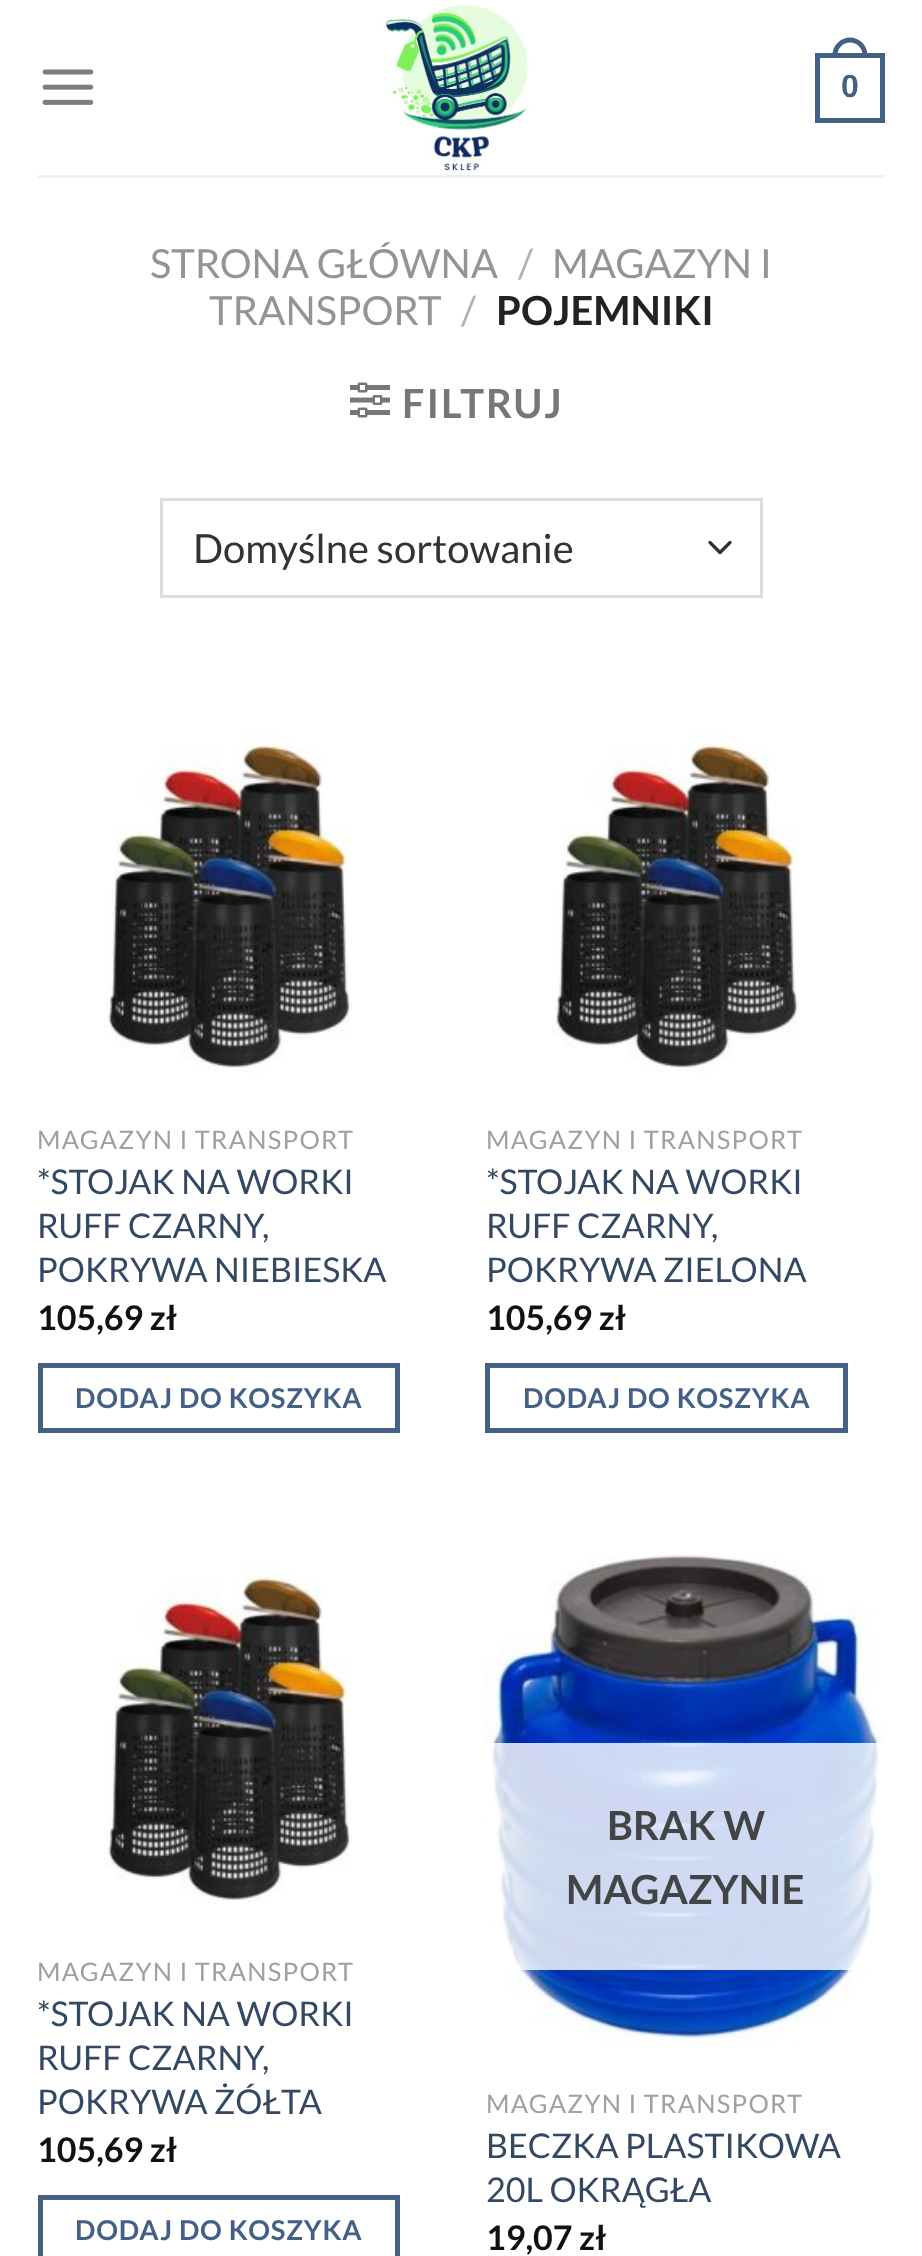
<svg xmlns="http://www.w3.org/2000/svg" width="922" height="2256">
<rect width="100%" height="100%" fill="#fff"/>
<image x="42" y="69" width="52" height="36" href="media/1.png"/>
<image x="380" y="4" width="151" height="169" href="media/2.png"/>
<rect x="817.5" y="55.5" width="65" height="65" fill="none" stroke="#446084" stroke-width="5"/>
<path d="M850 37.5c9.5 0 17.5 8 17.5 17.5v2.5h-35v-2.5c0-9.5 8-17.5 17.5-17.5zm0 5c7 0 12.5 5.5 12.5 12.5v2.5h-25v-2.5c0-7 5.5-12.5 12.5-12.5z" fill="#446084" fill-rule="evenodd"/>
<text x="841" y="97" style="font-family:Liberation Sans;font-size:32px;font-weight:bold;fill:#446084">0</text>
<rect x="38" y="175" width="847" height="3" fill="#f1f1f1"/>
<text x="150" y="278" style="font-family:Lato;font-size:40px;fill:#949494">STRONA GŁÓWNA</text>
<text x="518" y="278" style="font-family:Lato;font-size:40px;fill:#b2b2b2">/</text>
<text x="552" y="278" style="font-family:Lato;font-size:40px;fill:#949494">MAGAZYN I</text>
<text x="209" y="325" style="font-family:Lato;font-size:40px;fill:#949494">TRANSPORT</text>
<text x="461" y="325" style="font-family:Lato;font-size:40px;fill:#b2b2b2">/</text>
<text x="496" y="325" style="font-family:Lato;font-size:40px;font-weight:bold;fill:#222">POJEMNIKI</text>
<image x="350" y="382" width="40" height="36" href="media/3.png"/>
<text x="402" y="418" style="font-family:Lato;font-size:40px;font-weight:bold;letter-spacing:2px;fill:#777">FILTRUJ</text>
<path d="M710 542.5l10 10l10-10" fill="none" stroke="#333" stroke-width="3.3" stroke-linecap="round" stroke-linejoin="round"/>
<rect x="161.5" y="499.5" width="600" height="97" fill="none" stroke="#ddd" stroke-width="3"/>
<text x="193" y="563" style="font-family:Lato;font-size:40px;fill:#333">Domyślne sortowanie</text>
<image x="104" y="729" width="248" height="344" href="media/4.png"/>
<text x="37" y="1149" style="font-family:Lato;font-size:25.5px;letter-spacing:1.25px;fill:#a0a0a0">MAGAZYN I TRANSPORT</text>
<text x="37" y="1194" style="font-family:Lato;font-size:34px;fill:#334862">*STOJAK NA WORKI</text>
<text x="37" y="1238" style="font-family:Lato;font-size:34px;fill:#334862">RUFF CZARNY,</text>
<text x="37" y="1282" style="font-family:Lato;font-size:34px;fill:#334862">POKRYWA NIEBIESKA</text>
<text x="37" y="1330" style="font-family:Lato;font-size:34px;font-weight:bold;fill:#111">105,69 zł</text>
<rect x="40.5" y="1365.5" width="357" height="65" fill="none" stroke="#446084" stroke-width="5"/>
<text x="75" y="1408" style="font-family:Lato;font-size:27.25px;font-weight:bold;letter-spacing:0.8px;fill:#446084">DODAJ DO KOSZYKA</text>
<image x="552" y="729" width="247" height="344" href="media/5.png"/>
<text x="486" y="1149" style="font-family:Lato;font-size:25.5px;letter-spacing:1.25px;fill:#a0a0a0">MAGAZYN I TRANSPORT</text>
<text x="486" y="1194" style="font-family:Lato;font-size:34px;fill:#334862">*STOJAK NA WORKI</text>
<text x="486" y="1238" style="font-family:Lato;font-size:34px;fill:#334862">RUFF CZARNY,</text>
<text x="486" y="1282" style="font-family:Lato;font-size:34px;fill:#334862">POKRYWA ZIELONA</text>
<text x="486" y="1330" style="font-family:Lato;font-size:34px;font-weight:bold;fill:#111">105,69 zł</text>
<rect x="487.5" y="1365.5" width="358" height="65" fill="none" stroke="#446084" stroke-width="5"/>
<text x="523" y="1408" style="font-family:Lato;font-size:27.25px;font-weight:bold;letter-spacing:0.8px;fill:#446084">DODAJ DO KOSZYKA</text>
<image x="104" y="1562" width="248" height="342" href="media/6.png"/>
<text x="37" y="1981" style="font-family:Lato;font-size:25.5px;letter-spacing:1.25px;fill:#a0a0a0">MAGAZYN I TRANSPORT</text>
<text x="37" y="2026" style="font-family:Lato;font-size:34px;fill:#334862">*STOJAK NA WORKI</text>
<text x="37" y="2070" style="font-family:Lato;font-size:34px;fill:#334862">RUFF CZARNY,</text>
<text x="37" y="2114" style="font-family:Lato;font-size:34px;fill:#334862">POKRYWA ŻÓŁTA</text>
<text x="37" y="2162" style="font-family:Lato;font-size:34px;font-weight:bold;fill:#111">105,69 zł</text>
<rect x="40.5" y="2197.5" width="357" height="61" fill="none" stroke="#446084" stroke-width="5"/>
<text x="75" y="2240" style="font-family:Lato;font-size:27.25px;font-weight:bold;letter-spacing:0.8px;fill:#446084">DODAJ DO KOSZYKA</text>
<image x="485" y="1555" width="400" height="493" href="media/7.png"/>
<rect x="485" y="1743" width="400" height="227" fill="#ffffffcf"/>
<text x="607" y="1840" style="font-family:Lato;font-size:40px;font-weight:bold;fill:#434446">BRAK W</text>
<text x="566" y="1904" style="font-family:Lato;font-size:40px;font-weight:bold;fill:#434446">MAGAZYNIE</text>
<text x="486" y="2113" style="font-family:Lato;font-size:25.5px;letter-spacing:1.25px;fill:#a0a0a0">MAGAZYN I TRANSPORT</text>
<text x="486" y="2158" style="font-family:Lato;font-size:34px;fill:#334862">BECZKA PLASTIKOWA</text>
<text x="486" y="2202" style="font-family:Lato;font-size:34px;fill:#334862">20L OKRĄGŁA</text>
<text x="486" y="2250" style="font-family:Lato;font-size:34px;font-weight:bold;fill:#111">19,07 zł</text>
</svg>
